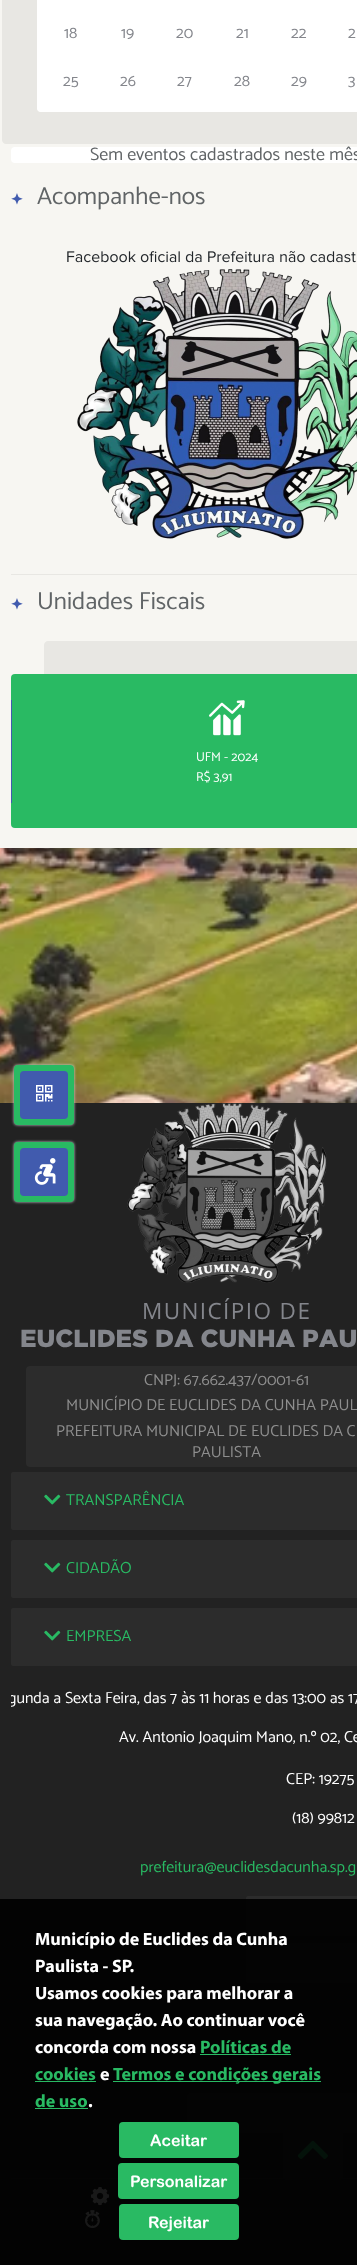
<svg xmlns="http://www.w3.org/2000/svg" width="357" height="2265">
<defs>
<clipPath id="clip1"><rect x="11" y="1678" width="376" height="42"/></clipPath>
</defs>
<rect width="100%" height="100%" fill="#f7f6f2"/>
<path d="M6-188c-2 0-4 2-4 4v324c0 2 2 4 4 4h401c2 0 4-2 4-4v-28h-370c-2 0-4-2-4-4v-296z" fill="#e8e7e3"/>
<rect x="37" y="-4" width="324" height="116" rx="4" fill="#fff"/>
<text x="64" y="38" style="font-family:Catamaran;font-size:16px;fill:#84868c">18</text>
<text x="121" y="38" style="font-family:Catamaran;font-size:16px;fill:#84868c">19</text>
<text x="176" y="38" style="font-family:Catamaran;font-size:16px;fill:#84868c">20</text>
<text x="236" y="38" style="font-family:Catamaran;font-size:16px;fill:#84868c">21</text>
<text x="291" y="38" style="font-family:Catamaran;font-size:16px;fill:#84868c">22</text>
<text x="348" y="38" style="font-family:Catamaran;font-size:16px;fill:#84868c">2</text>
<text x="63" y="86" style="font-family:Catamaran;font-size:16px;fill:#84868c">25</text>
<text x="120" y="86" style="font-family:Catamaran;font-size:16px;fill:#84868c">26</text>
<text x="177" y="86" style="font-family:Catamaran;font-size:16px;fill:#84868c">27</text>
<text x="234" y="86" style="font-family:Catamaran;font-size:16px;fill:#84868c">28</text>
<text x="291" y="86" style="font-family:Catamaran;font-size:16px;fill:#84868c">29</text>
<text x="348" y="86" style="font-family:Catamaran;font-size:16px;fill:#84868c">3</text>
<rect x="11" y="147" width="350" height="16" rx="4" fill="#fff"/>
<text x="90" y="160" style="font-family:Catamaran;font-size:18px;fill:#606466">Sem eventos cadastrados neste mês</text>
<image x="11" y="193" width="12" height="12" href="media/1.png"/>
<text x="37" y="204" style="font-family:Catamaran;font-size:24.75px;fill:#606466">Acompanhe-nos</text>
<image x="67" y="250" width="289" height="13" href="media/2.png"/>
<image x="77" y="269" width="280" height="270" href="media/3.png"/>
<rect x="11" y="574" width="346" height="1" fill="#e8e7e3"/>
<image x="11" y="598" width="12" height="12" href="media/1.png"/>
<text x="37" y="609" style="font-family:Catamaran;font-size:24.75px;fill:#606466">Unidades Fiscais</text>
<path d="M48 641c-2 0-4 2-4 4v29h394c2 0 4 2 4 4v117h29c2 0 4-2 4-4v-146c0-2-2-4-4-4z" fill="#e8e7e3"/>
<rect x="11" y="674" width="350" height="154" rx="4" fill="#29ba63"/>
<rect x="11" y="700" width="1" height="103" fill="#415bae"/>
<image x="209" y="700" width="36" height="36" href="media/4.png"/>
<text x="196" y="761" style="font-family:Catamaran;font-size:13px;fill:#fff">UFM - 2024</text>
<text x="196" y="781" style="font-family:Catamaran;font-size:13px;fill:#fff">R$ 3,91</text>
<image x="0" y="848" width="357" height="255" href="media/5.png"/>
<rect y="1103" width="357" height="1162" fill="#222"/>
<image x="127" y="1103" width="200" height="180" href="media/6.png"/>
<text x="142" y="1319" style="font-family:Open Sans;font-size:22.5px;letter-spacing:1.4px;fill:#84868c">MUNICÍPIO DE</text>
<text x="20" y="1347" style="font-family:Gotham;font-size:24.75px;font-weight:900;fill:#84868c">EUCLIDES DA CUNHA PAU</text>
<rect x="26" y="1366" width="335" height="101" rx="4" fill="#2c2c2c"/>
<text x="144" y="1385" style="font-family:Catamaran;font-size:16px;fill:#8e8e8e">CNPJ: 67.662.437/0001-61</text>
<text x="66" y="1410" style="font-family:Catamaran;font-size:16px;fill:#8e8e8e">MUNICÍPIO DE EUCLIDES DA CUNHA PAUL</text>
<text x="56" y="1436" style="font-family:Catamaran;font-size:16px;fill:#8e8e8e">PREFEITURA MUNICIPAL DE EUCLIDES DA C</text>
<text x="192" y="1457" style="font-family:Catamaran;font-size:16px;fill:#8e8e8e">PAULISTA</text>
<rect x="11" y="1472" width="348" height="58" rx="2" fill="#2c2c2c"/>
<image x="44" y="1494" width="17" height="11" href="media/7.png"/>
<text x="66" y="1505" style="font-family:Catamaran;font-size:16px;fill:#29ba63">TRANSPARÊNCIA</text>
<rect x="11" y="1540" width="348" height="58" rx="2" fill="#2c2c2c"/>
<image x="44" y="1562" width="17" height="11" href="media/7.png"/>
<text x="66" y="1573" style="font-family:Catamaran;font-size:16px;fill:#29ba63">CIDADÃO</text>
<rect x="11" y="1608" width="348" height="58" rx="2" fill="#2c2c2c"/>
<image x="44" y="1630" width="17" height="11" href="media/7.png"/>
<text x="66" y="1641" style="font-family:Catamaran;font-size:16px;fill:#29ba63">EMPRESA</text>
<g clip-path="url(#clip1)">
<text x="8" y="1703" style="font-family:Catamaran;font-size:16px;fill:#fff">gunda a Sexta Feira, das 7 às 11 horas e das 13:00 as 17</text>
</g>
<text x="119" y="1742" style="font-family:Catamaran;font-size:16px;fill:#fff">Av. Antonio Joaquim Mano, n.º 02, Ce</text>
<text x="286" y="1784" style="font-family:Catamaran;font-size:16px;fill:#fff">CEP: 19275</text>
<text x="292" y="1823" style="font-family:Catamaran;font-size:16px;fill:#fff">(18) 99812</text>
<text x="140" y="1872" style="font-family:Catamaran;font-size:16px;fill:#29ba63">prefeitura@euclidesdacunha.sp.g</text>
<rect x="246" y="1896" width="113" height="40" rx="2" fill="#2c2c2c"/>
<rect x="246" y="1943" width="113" height="40" rx="2" fill="#2c2c2c"/>
<rect x="187" y="2093" width="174" height="40" rx="4" fill="#2c2c2c"/>
<rect x="11" y="2178" width="346" height="1" fill="#2c2c2c"/>
<rect x="283" y="2120" width="60" height="60" rx="4" fill="#2c2c2c"/>
<image x="297" y="2140" width="31" height="19" href="media/8.png"/>
<image x="91" y="2187" width="18" height="19" href="media/9.png"/>
<image x="85" y="2210" width="15" height="19" href="media/10.png"/>
<rect y="1899" width="357" height="366" fill="#000000e6"/>
<text x="35" y="1945" style="font-family:Myriad;font-size:18px;font-weight:bold;fill:#fff">Município de Euclides da Cunha</text>
<text x="35" y="1972" style="font-family:Myriad;font-size:18px;font-weight:bold;fill:#fff">Paulista - SP.</text>
<text x="35" y="1999" style="font-family:Myriad;font-size:18px;font-weight:bold;fill:#fff">Usamos cookies para melhorar a</text>
<text x="35" y="2026" style="font-family:Myriad;font-size:18px;font-weight:bold;fill:#fff">sua navegação. Ao continuar você</text>
<text x="35" y="2053" style="font-family:Myriad;font-size:18px;font-weight:bold;fill:#fff">concorda com nossa</text>
<text x="200" y="2053" style="font-family:Myriad;font-size:18px;font-weight:bold;fill:#29ba63">Políticas de</text>
<rect x="200" y="2054" width="91" height="1" fill="#29ba63"/>
<text x="35" y="2080" style="font-family:Myriad;font-size:18px;font-weight:bold;fill:#29ba63">cookies</text>
<rect x="35" y="2081" width="61" height="1" fill="#29ba63"/>
<text x="100" y="2080" style="font-family:Myriad;font-size:18px;font-weight:bold;fill:#fff">e</text>
<rect x="113" y="2081" width="208" height="1" fill="#29ba63"/>
<text x="113" y="2080" style="font-family:Myriad;font-size:18px;font-weight:bold;fill:#29ba63">Termos e condições gerais</text>
<text x="35" y="2107" style="font-family:Myriad;font-size:18px;font-weight:bold;fill:#29ba63">de uso</text>
<rect x="35" y="2108" width="53" height="1" fill="#29ba63"/>
<text x="88" y="2107" style="font-family:Myriad;font-size:18px;font-weight:bold;fill:#fff">.</text>
<rect x="119" y="2122" width="120" height="36" rx="4" fill="#29ba63"/>
<text x="150" y="2146" style="font-family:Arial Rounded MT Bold;font-size:16px;font-weight:bold;fill:#fff">Aceitar</text>
<rect x="118" y="2163" width="121" height="36" rx="4" fill="#29ba63"/>
<text x="130" y="2187" style="font-family:Arial Rounded MT Bold;font-size:16px;font-weight:bold;fill:#fff">Personalizar</text>
<rect x="119" y="2204" width="120" height="36" rx="4" fill="#29ba63"/>
<text x="148" y="2228" style="font-family:Arial Rounded MT Bold;font-size:16px;font-weight:bold;fill:#fff">Rejeitar</text>
<rect x="14" y="1065" width="60" height="60" rx="4" fill="#cbd0d6" filter="blur(1.5px)"/>
<rect x="14" y="1065" width="60" height="60" rx="4" fill="#29ba63"/>
<rect x="20" y="1071" width="48" height="48" rx="4" fill="#415bae"/>
<image x="36" y="1085" width="17" height="17" href="media/11.png"/>
<rect x="14" y="1142" width="60" height="60" rx="4" fill="#cbd0d6" filter="blur(1.5px)"/>
<rect x="14" y="1142" width="60" height="60" rx="4" fill="#29ba63"/>
<rect x="20" y="1148" width="48" height="48" rx="4" fill="#415bae"/>
<image x="34" y="1158" width="22" height="27" href="media/12.png"/>
</svg>
